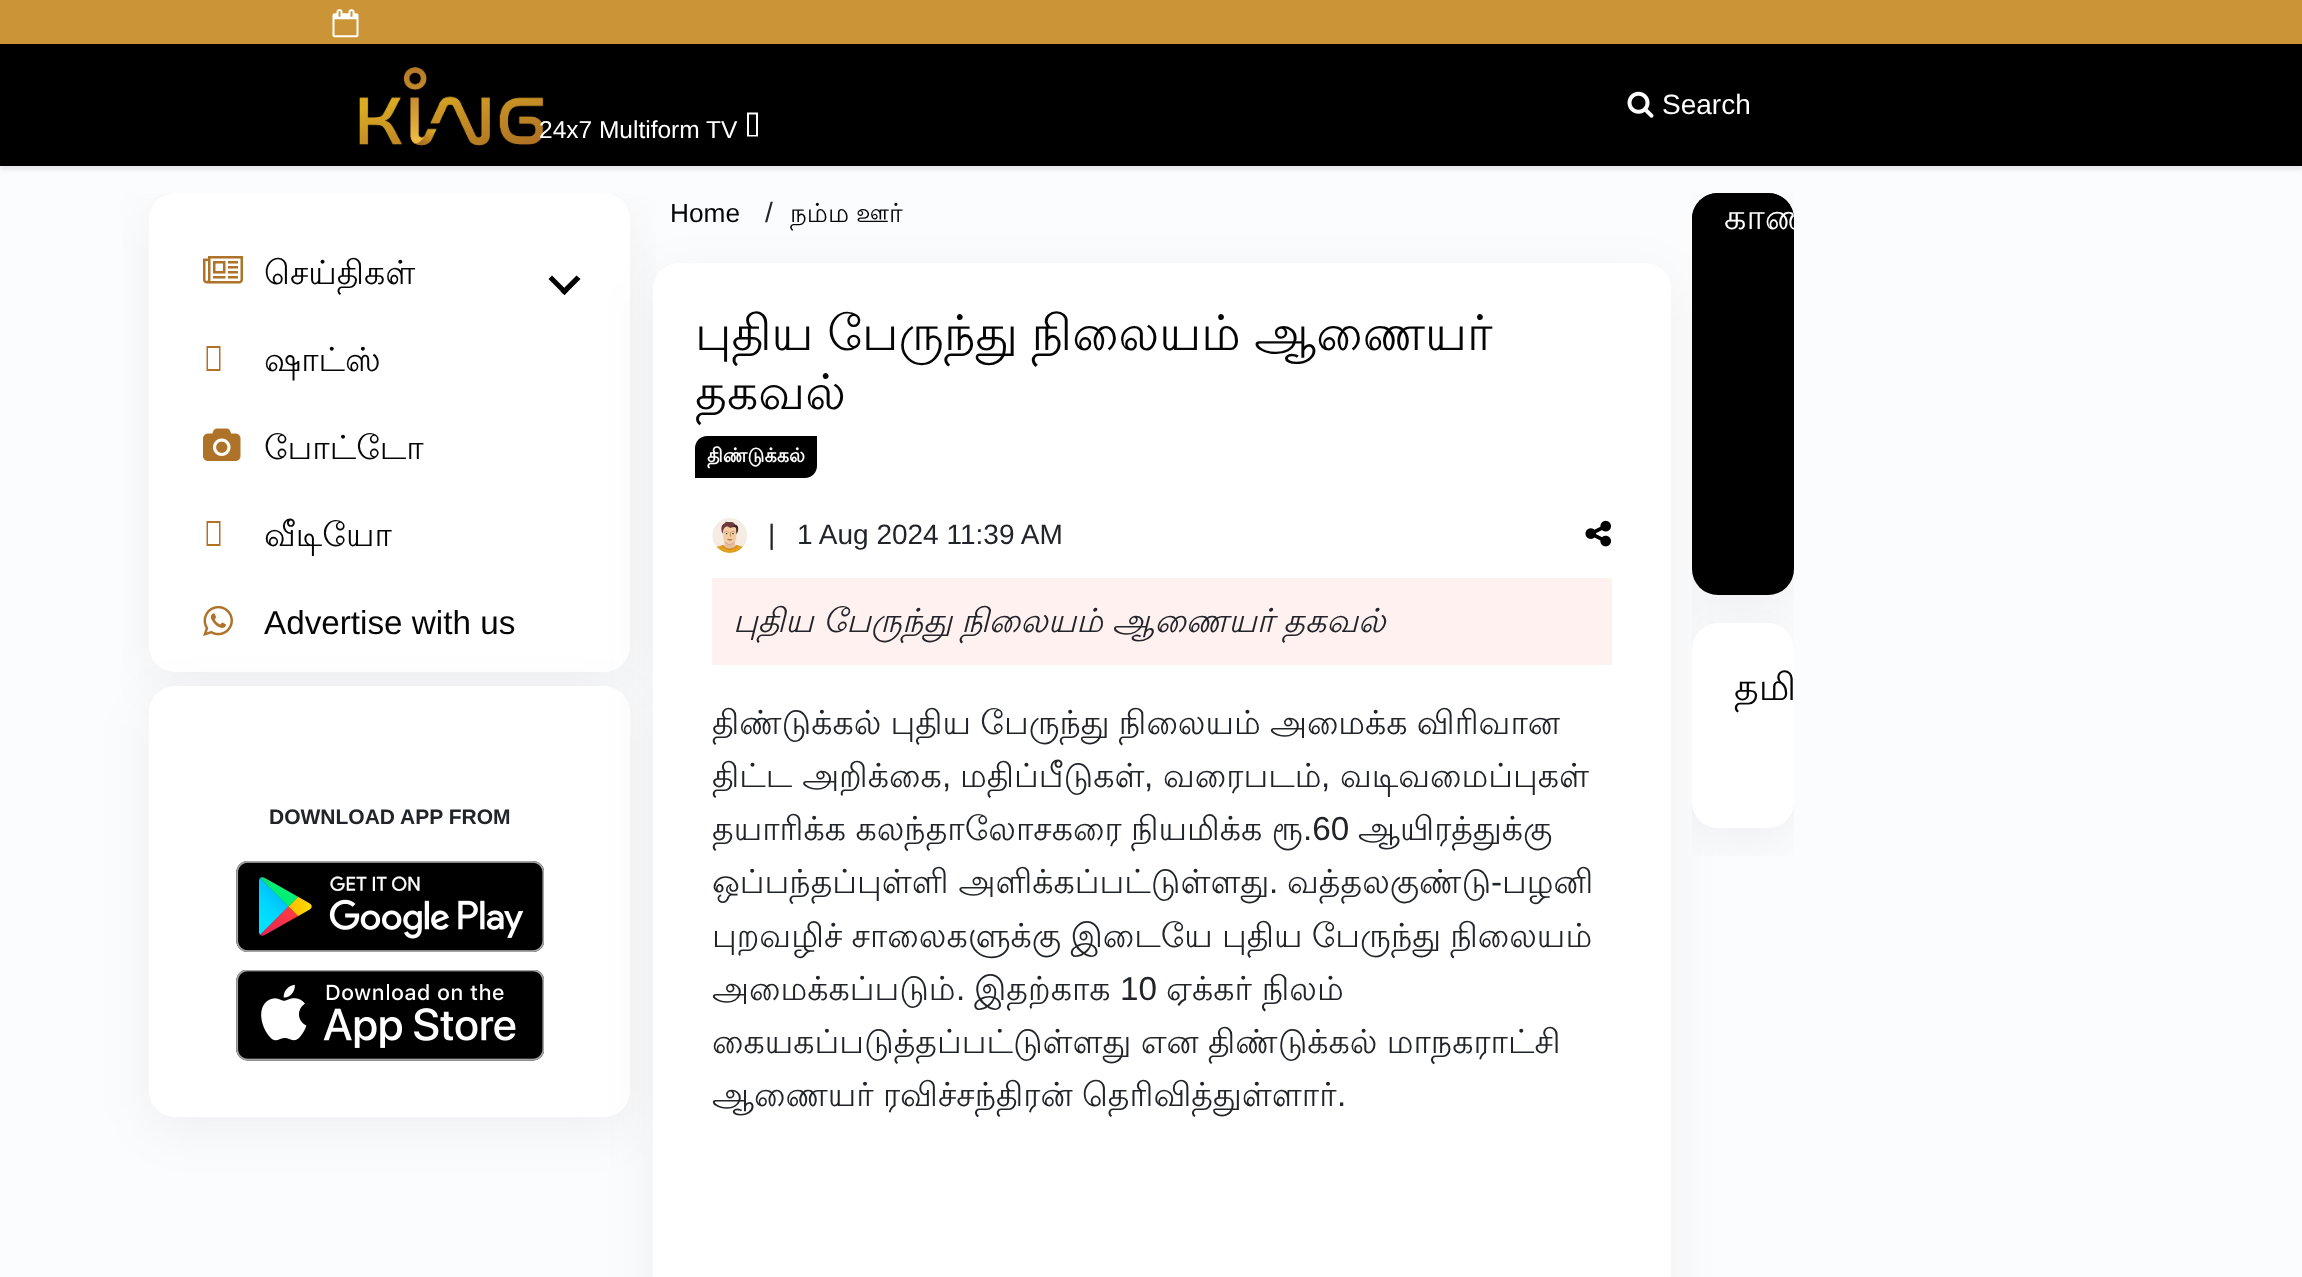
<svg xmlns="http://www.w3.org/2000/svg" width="2302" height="1277">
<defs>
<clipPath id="clip1"><path d="M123 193h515c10 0 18 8 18 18v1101c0 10-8 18-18 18h-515z"/></clipPath>
<clipPath id="clip2"><rect x="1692" y="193" width="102" height="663"/></clipPath>
<clipPath id="clip3"><rect x="1692" y="193" width="102" height="402" rx="26"/></clipPath>
</defs>
<rect width="100%" height="100%" fill="#fbfcfe"/>
<rect width="2302" height="44" fill="#cb9436"/>
<image x="332" y="9" width="27" height="29" href="media/1.png"/>
<rect y="47" width="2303" height="123" fill="#00000014" filter="blur(2px)"/>
<g clip-path="url(#clip1)">
<rect x="149" y="207" width="481" height="479" rx="26" fill="#0000000d" filter="blur(26px)"/>
</g>
<rect x="149" y="193" width="481" height="479" rx="26" fill="#fff"/>
<rect x="149" y="700" width="481" height="431" rx="26" fill="#0000000d" filter="blur(26px)"/>
<path d="M576.5 275.5l4 3.5l-16 16l-4-3.5z" fill="#000"/>
<rect x="149" y="686" width="481" height="431" rx="26" fill="#fff"/>
<rect x="653" y="277" width="1018" height="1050" rx="26" fill="#0000000d" filter="blur(26px)"/>
<rect x="653" y="263" width="1018" height="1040" rx="26" fill="#fff"/>
<g clip-path="url(#clip2)">
<rect x="1692" y="207" width="102" height="402" rx="26" fill="#0000000d" filter="blur(26px)"/>
</g>
<rect y="44" width="2302" height="122" fill="#000"/>
<image x="359" y="67" width="185" height="79" href="media/2.png"/>
<image x="1627" y="91" width="27" height="27" href="media/3.png"/>
<text x="1662" y="114" style="font-family:Liberation Sans;font-size:28px;fill:#fff">Search</text>
<text x="539" y="138" style="font-family:Liberation Sans;font-size:24.5px;fill:#fff">24x7 Multiform TV</text>
<path d="M749 135h7v-20.5h-7zm-2 1.5v-24h11v24z" fill="#fff"/>
<image x="203" y="256" width="40" height="28" href="media/4.png"/>
<text x="264" y="284" style="font-family:Lohit Tamil;font-size:33.25px;fill:#050505">செய்திகள்</text>
<path d="M552 275.5l16 16l-3.5 3.5l-16-16z" fill="#000"/>
<path d="M206.5 371v-25h14v25zm1.5-2h11v-21h-11z" fill="#ae7329"/>
<text x="264" y="371" style="font-family:Lohit Tamil;font-size:33.25px;fill:#050505">ஷாட்ஸ்</text>
<image x="203" y="428" width="38" height="33" href="media/5.png"/>
<text x="264" y="459" style="font-family:Lohit Tamil;font-size:33.25px;fill:#050505">போட்டோ</text>
<path d="M206.5 546v-25h14v25zm1.5-2h11v-21h-11z" fill="#ae7329"/>
<text x="264" y="546" style="font-family:Lohit Tamil;font-size:33.25px;fill:#050505">வீடியோ</text>
<image x="203" y="605" width="30" height="31" href="media/6.png"/>
<text x="264" y="634" style="font-family:Liberation Sans;font-size:33.25px;fill:#050505">Advertise with us</text>
<text x="269" y="824" style="font-family:Liberation Sans;font-size:21px;font-weight:bold;fill:#212529">DOWNLOAD APP FROM</text>
<image x="236" y="861" width="308" height="91" href="media/7.png"/>
<image x="236" y="970" width="308" height="91" href="media/8.png"/>
<text x="670" y="222" style="font-family:Liberation Sans;font-size:26.25px;fill:#050505">Home</text>
<text x="765" y="222" style="font-family:Liberation Sans;font-size:28px;fill:#212529">/</text>
<text x="790" y="222" word-spacing="-1" style="font-family:Lohit Tamil;font-size:26.25px;fill:#050505">நம்ம ஊர்</text>
<text x="695" y="350" word-spacing="-1" style="font-family:Lohit Tamil;font-size:49px;fill:#050505">புதிய பேருந்து நிலையம் ஆணையர்</text>
<text x="695" y="409" style="font-family:Lohit Tamil;font-size:49px;fill:#050505">தகவல்</text>
<path d="M707 436h110v30c0 6.5-5.5 12-12 12h-110v-30c0-6.5 5.5-12 12-12z" fill="#000"/>
<text x="707" y="462" style="font-family:Lohit Tamil;font-size:19.25px;font-weight:bold;fill:#fff">திண்டுக்கல்</text>
<image x="712" y="518" width="35" height="35" href="media/9.png"/>
<text x="768" y="544" style="font-family:Liberation Sans;font-size:28px;fill:#212529">|</text>
<text x="797" y="544" style="font-family:Liberation Sans;font-size:28px;fill:#212529">1 Aug 2024 11:39 AM</text>
<image x="1585" y="520" width="26" height="27" href="media/10.png"/>
<rect x="712" y="578" width="900" height="87" fill="#fff1f0"/>
<text x="733" y="632" word-spacing="-0.75" style="font-family:Lohit Tamil;font-size:33.25px;font-style:italic;fill:#212529">புதிய பேருந்து நிலையம் ஆணையர் தகவல்</text>
<text x="712" y="734" word-spacing="-0.75" style="font-family:Lohit Tamil;font-size:33.25px;fill:#212529">திண்டுக்கல் புதிய பேருந்து நிலையம் அமைக்க விரிவான</text>
<text x="712" y="787" style="font-family:Lohit Tamil;font-size:33.25px;fill:#212529">திட்ட அறிக்கை</text>
<text x="942" y="787" style="font-family:Liberation Sans;font-size:33.25px;fill:#212529">,</text>
<text x="960" y="787" style="font-family:Lohit Tamil;font-size:33.25px;fill:#212529">மதிப்பீடுகள்</text>
<text x="1144" y="787" style="font-family:Liberation Sans;font-size:33.25px;fill:#212529">,</text>
<text x="1163" y="787" style="font-family:Lohit Tamil;font-size:33.25px;fill:#212529">வரைபடம்</text>
<text x="1321" y="787" style="font-family:Liberation Sans;font-size:33.25px;fill:#212529">,</text>
<text x="1340" y="787" style="font-family:Lohit Tamil;font-size:33.25px;fill:#212529">வடிவமைப்புகள்</text>
<text x="712" y="840" word-spacing="-0.5" style="font-family:Lohit Tamil;font-size:33.25px;fill:#212529">தயாரிக்க கலந்தாலோசகரை நியமிக்க ரூ</text>
<text x="1303" y="840" style="font-family:Liberation Sans;font-size:33.25px;fill:#212529">.60</text>
<text x="1358" y="840" style="font-family:Lohit Tamil;font-size:33.25px;fill:#212529">ஆயிரத்துக்கு</text>
<text x="712" y="893" style="font-family:Lohit Tamil;font-size:33.25px;fill:#212529">ஒப்பந்தப்புள்ளி அளிக்கப்பட்டுள்ளது</text>
<text x="1287" y="893" style="font-family:Lohit Tamil;font-size:33.25px;fill:#212529">வத்தலகுண்டு</text>
<text x="1491" y="893" style="font-family:Liberation Sans;font-size:33.25px;fill:#212529">-</text>
<text x="1502" y="893" style="font-family:Lohit Tamil;font-size:33.25px;fill:#212529">பழனி</text>
<text x="1269" y="893" style="font-family:Liberation Sans;font-size:33.25px;fill:#212529">.</text>
<text x="712" y="947" word-spacing="-0.75" style="font-family:Lohit Tamil;font-size:33.25px;fill:#212529">புறவழிச் சாலைகளுக்கு இடையே புதிய பேருந்து நிலையம்</text>
<text x="712" y="1000" style="font-family:Lohit Tamil;font-size:33.25px;fill:#212529">அமைக்கப்படும்</text>
<text x="956" y="1000" style="font-family:Liberation Sans;font-size:33.25px;fill:#212529">.</text>
<text x="974" y="1000" style="font-family:Lohit Tamil;font-size:33.25px;fill:#212529">இதற்காக</text>
<text x="1120" y="1000" style="font-family:Liberation Sans;font-size:33.25px;fill:#212529">10</text>
<text x="1166" y="1000" style="font-family:Lohit Tamil;font-size:33.25px;fill:#212529">ஏக்கர் நிலம்</text>
<text x="712" y="1053" word-spacing="-0.75" style="font-family:Lohit Tamil;font-size:33.25px;fill:#212529">கையகப்படுத்தப்பட்டுள்ளது என திண்டுக்கல் மாநகராட்சி</text>
<text x="712" y="1106" word-spacing="-0.75" style="font-family:Lohit Tamil;font-size:33.25px;fill:#212529">ஆணையர் ரவிச்சந்திரன் தெரிவித்துள்ளார்</text>
<text x="1337" y="1106" style="font-family:Liberation Sans;font-size:33.25px;fill:#212529">.</text>
<rect x="1692" y="193" width="102" height="402" rx="26" fill="#000"/>
<path d="M1718 193h50c14.5 0 26 11.5 26 26v9h-102v-9c0-14.5 11.5-26 26-26z" fill="#000"/>
<g clip-path="url(#clip3)">
<text x="1724" y="229" style="font-family:Lohit Tamil;font-size:35px;fill:#fff">காண</text>
</g>
<g clip-path="url(#clip2)">
<rect x="1692" y="637" width="102" height="205" rx="26" fill="#0000000d" filter="blur(26px)"/>
</g>
<rect x="1692" y="623" width="102" height="205" rx="26" fill="#fff"/>
<text x="1734" y="700" style="font-family:Lohit Tamil;font-size:38px;fill:#050505">தமி</text>
</svg>
